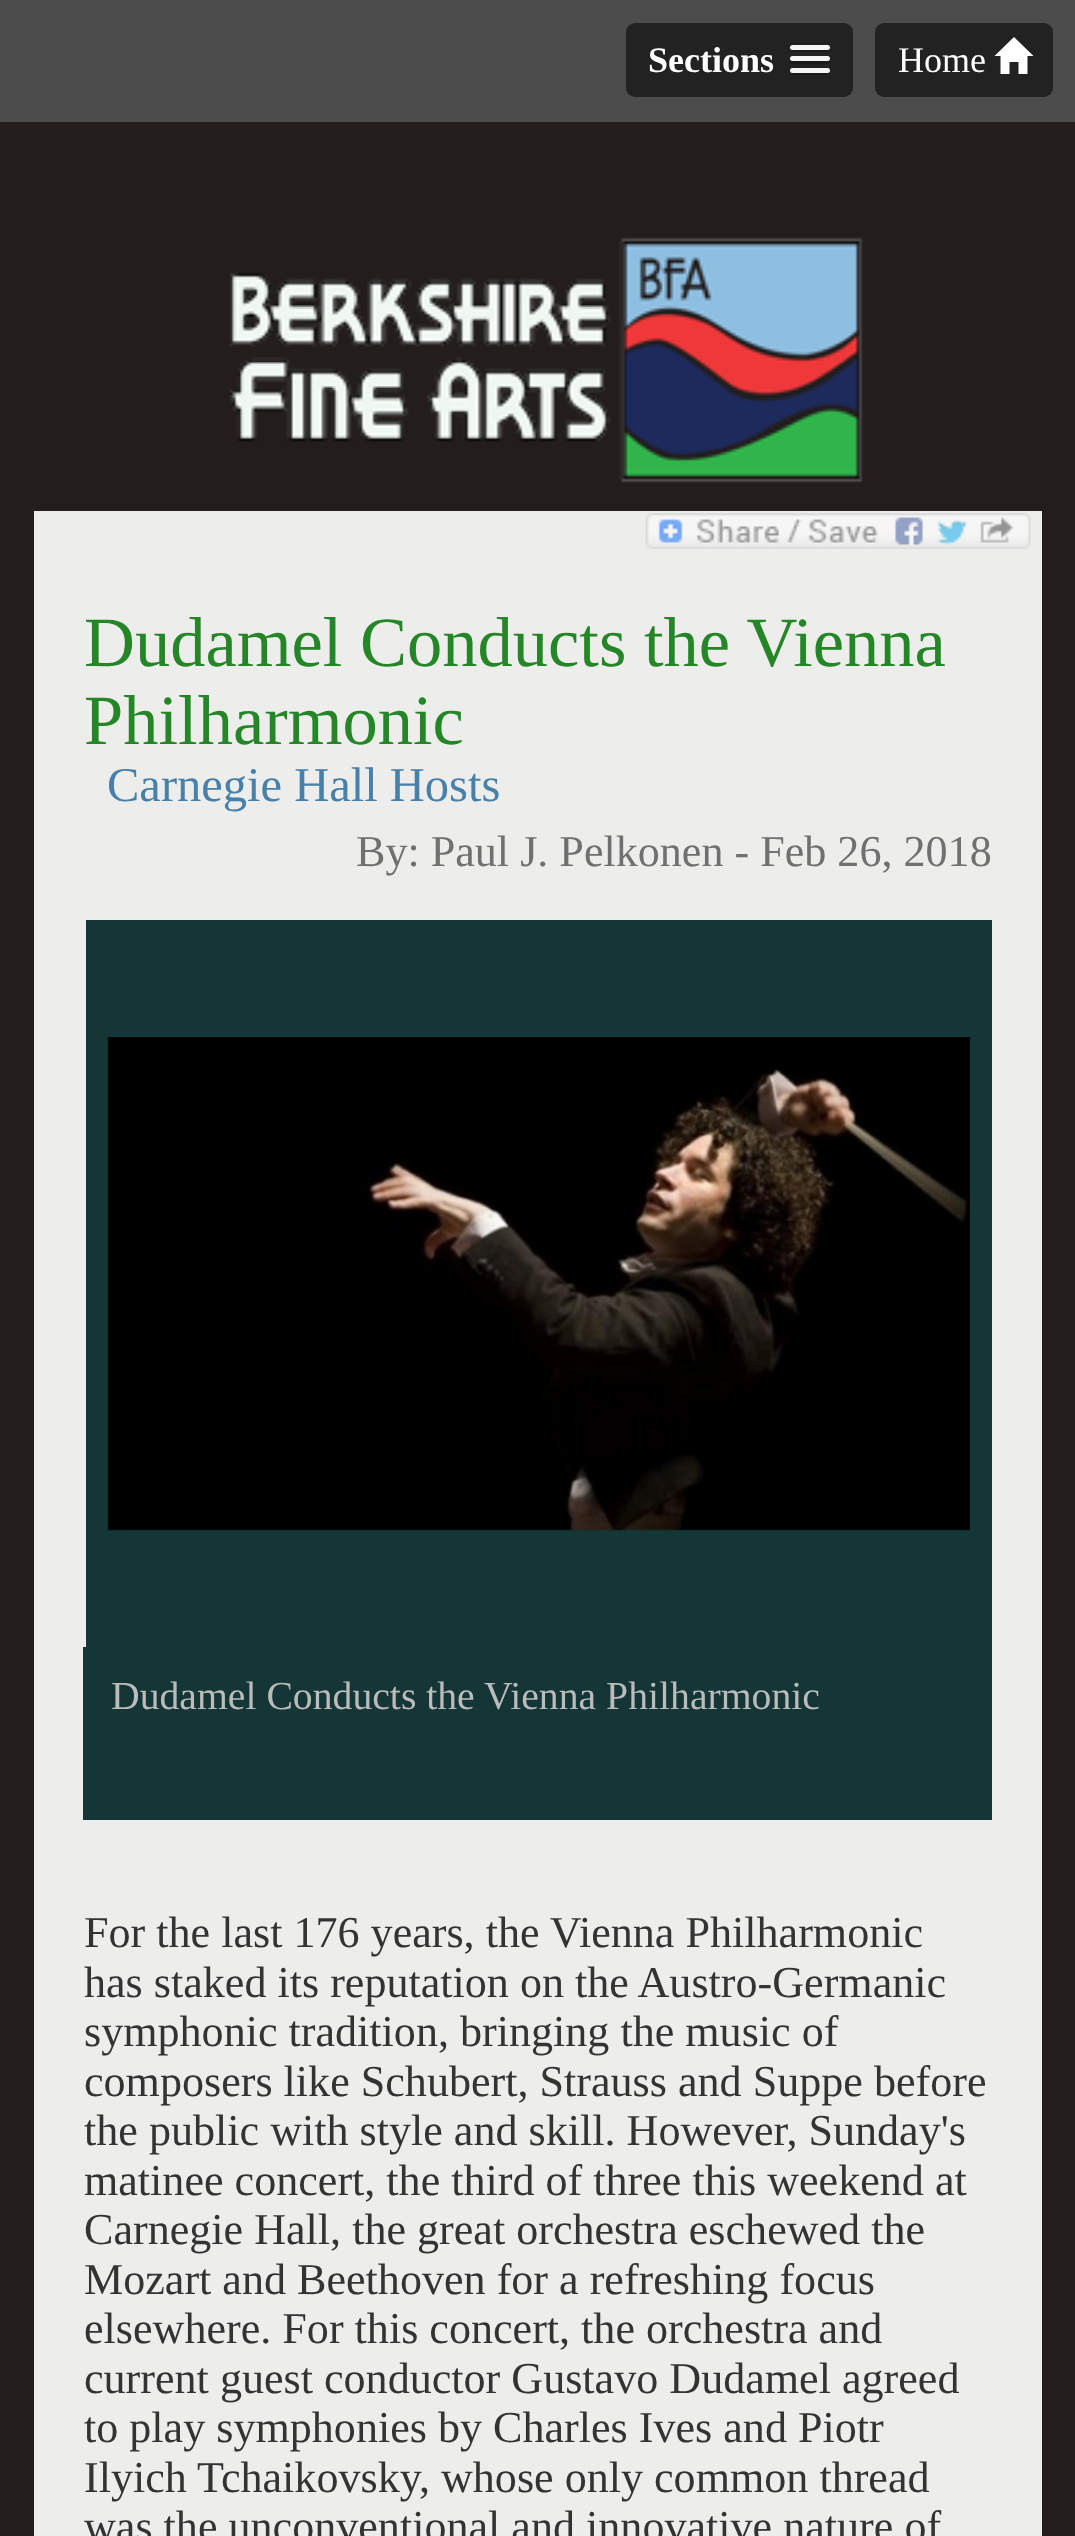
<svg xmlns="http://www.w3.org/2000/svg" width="1075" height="2536">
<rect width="100%" height="100%" fill="#231d1d"/>
<rect width="1075" height="122" fill="#4c4c4c"/>
<rect x="626" y="23" width="227" height="74" rx="9" fill="#222"/>
<text x="648" y="72" style="font-family:Liberation Serif;font-size:36px;font-weight:bold;fill:#fff">Sections</text>
<path d="M790 49c-2 4 7 3 8 3h24c1 0 10 1 8-3h-2h-36z" fill="#1a1a1a"/>
<rect x="790" y="45" width="40" height="5" rx="2.5" fill="#f5f5f5"/>
<path d="M790 60c-3 5 8 4 8 4h24c0 0 11 1 8-4c-2 1-38 1-40 0z" fill="#1a1a1a"/>
<rect x="790" y="56" width="40" height="5" rx="2.5" fill="#f5f5f5"/>
<path d="M790 71c-2 5 8 4 8 4h24c0 0 10 1 8-4c-2 2-38 2-40 0z" fill="#1a1a1a"/>
<rect x="790" y="68" width="40" height="5" rx="2.5" fill="#f5f5f5"/>
<rect x="875" y="23" width="178" height="74" rx="9" fill="#222"/>
<text x="898" y="72" style="font-family:Liberation Serif;font-size:36px;fill:#fff">Home</text>
<path d="M994.5 56l19.5-19l19.5 19h-6v18h-9v-12h-9v12h-9v-18z" fill="#fff"/>
<image x="229" y="237" width="634" height="246" href="media/1.png"/>
<rect x="34" y="511" width="1008" height="2025" fill="#ededec"/>
<image x="645" y="513" width="386" height="36" href="media/2.png"/>
<text x="84" y="666" style="font-family:Liberation Serif;font-size:70.5px;fill:#248627">Dudamel Conducts the Vienna</text>
<text x="84" y="744" style="font-family:Liberation Serif;font-size:70.5px;fill:#248627">Philharmonic</text>
<text x="107" y="801" style="font-family:Liberation Serif;font-size:48.5px;fill:#4780a8">Carnegie Hall Hosts</text>
<text x="356" y="866" style="font-family:Liberation Serif;font-size:44.1px;fill:#707070">By: Paul J. Pelkonen - Feb 26, 2018</text>
<rect x="86" y="920" width="906" height="727" fill="#143636"/>
<image x="107" y="1037" width="863" height="494" href="media/3.png"/>
<rect x="83" y="1647" width="909" height="173" fill="#143636"/>
<text x="111" y="1709" style="font-family:Liberation Serif;font-size:39.7px;fill:#bbb">Dudamel Conducts the Vienna Philharmonic</text>
<text x="84" y="1947" style="font-family:Liberation Serif;font-size:44.1px;fill:#333">For the last 176 years, the Vienna Philharmonic</text>
<text x="84" y="1997" style="font-family:Liberation Serif;font-size:44.1px;fill:#333">has staked its reputation on the Austro-Germanic</text>
<text x="84" y="2046" style="font-family:Liberation Serif;font-size:44.1px;fill:#333">symphonic tradition, bringing the music of</text>
<text x="84" y="2096" style="font-family:Liberation Serif;font-size:44.1px;fill:#333">composers like Schubert, Strauss and Suppe before</text>
<text x="84" y="2145" style="font-family:Liberation Serif;font-size:44.1px;fill:#333">the public with style and skill. However, Sunday's</text>
<text x="84" y="2195" style="font-family:Liberation Serif;font-size:44.1px;fill:#333">matinee concert, the third of three this weekend at</text>
<text x="84" y="2244" style="font-family:Liberation Serif;font-size:44.1px;fill:#333">Carnegie Hall, the great orchestra eschewed the</text>
<text x="84" y="2294" style="font-family:Liberation Serif;font-size:44.1px;fill:#333">Mozart and Beethoven for a refreshing focus</text>
<text x="84" y="2343" style="font-family:Liberation Serif;font-size:44.1px;fill:#333">elsewhere. For this concert, the orchestra and</text>
<text x="84" y="2393" style="font-family:Liberation Serif;font-size:44.1px;fill:#333">current guest conductor Gustavo Dudamel agreed</text>
<text x="84" y="2442" style="font-family:Liberation Serif;font-size:44.1px;fill:#333">to play symphonies by Charles Ives and Piotr</text>
<text x="84" y="2492" style="font-family:Liberation Serif;font-size:44.1px;fill:#333">Ilyich Tchaikovsky, whose only common thread</text>
<text x="84" y="2541" style="font-family:Liberation Serif;font-size:44.1px;fill:#333">was the unconventional and innovative nature of</text>
</svg>
